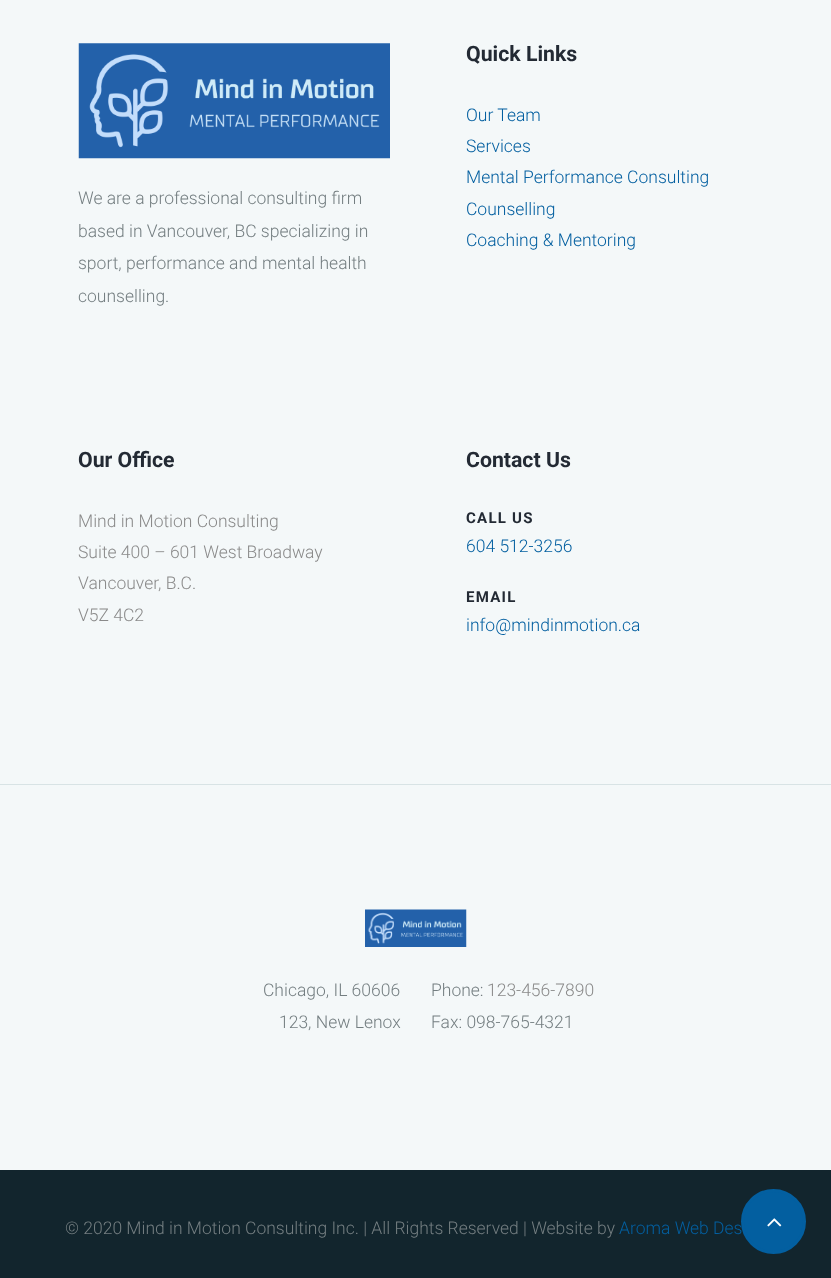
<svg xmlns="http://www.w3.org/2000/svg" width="831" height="1278">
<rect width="100%" height="100%" fill="#f4f8f9"/>
<image x="78" y="43" width="312" height="116" href="media/1.png"/>
<text x="78" y="204" style="font-family:Roboto;font-size:17.5px;font-weight:300;fill:#747e81">We are a professional consulting firm</text>
<text x="78" y="237" style="font-family:Roboto;font-size:17.5px;font-weight:300;fill:#747e81">based in Vancouver, BC specializing in</text>
<text x="78" y="269" style="font-family:Roboto;font-size:17.5px;font-weight:300;fill:#747e81">sport, performance and mental health</text>
<text x="78" y="302" style="font-family:Roboto;font-size:17.5px;font-weight:300;fill:#747e81">counselling.</text>
<text x="466" y="61" style="font-family:Roboto;font-size:21.25px;font-weight:bold;fill:#232a34">Quick Links</text>
<text x="466" y="121" style="font-family:Roboto;font-size:17.5px;font-weight:300;fill:#035fa0">Our Team</text>
<text x="466" y="152" style="font-family:Roboto;font-size:17.5px;font-weight:300;fill:#035fa0">Services</text>
<text x="466" y="183" style="font-family:Roboto;font-size:17.5px;font-weight:300;fill:#035fa0">Mental Performance Consulting</text>
<text x="466" y="215" style="font-family:Roboto;font-size:17.5px;font-weight:300;fill:#035fa0">Counselling</text>
<text x="466" y="246" style="font-family:Roboto;font-size:17.5px;font-weight:300;fill:#035fa0">Coaching &amp; Mentoring</text>
<text x="78" y="467" style="font-family:Roboto;font-size:21.25px;font-weight:bold;fill:#232a34">Our Office</text>
<text x="78" y="527" style="font-family:Roboto;font-size:17.5px;font-weight:300;fill:#8a8a8a">Mind in Motion Consulting</text>
<text x="78" y="558" style="font-family:Roboto;font-size:17.5px;font-weight:300;fill:#8a8a8a">Suite 400 – 601 West Broadway</text>
<text x="78" y="589" style="font-family:Roboto;font-size:17.5px;font-weight:300;fill:#8a8a8a">Vancouver, B.C.</text>
<text x="78" y="621" style="font-family:Roboto;font-size:17.5px;font-weight:300;fill:#8a8a8a">V5Z 4C2</text>
<text x="466" y="467" style="font-family:Roboto;font-size:21.25px;font-weight:bold;fill:#232a34">Contact Us</text>
<text x="466" y="523" style="font-family:Roboto;font-size:15px;font-weight:bold;letter-spacing:1.25px;fill:#232a34">CALL US</text>
<text x="466" y="552" style="font-family:Roboto;font-size:17.5px;font-weight:300;fill:#035fa0">604 512-3256</text>
<text x="466" y="602" style="font-family:Roboto;font-size:15px;font-weight:bold;letter-spacing:1.25px;fill:#232a34">EMAIL</text>
<text x="466" y="631" style="font-family:Roboto;font-size:17.5px;font-weight:300;fill:#035fa0">info@mindinmotion.ca</text>
<rect y="784" width="831" height="1" fill="#d8e3e5"/>
<image x="365" y="909" width="102" height="38" href="media/2.png"/>
<text x="263" y="996" style="font-family:Roboto;font-size:17.5px;font-weight:300;fill:#747e81">Chicago, IL 60606</text>
<text x="279" y="1028" style="font-family:Roboto;font-size:17.5px;font-weight:300;fill:#747e81">123, New Lenox</text>
<text x="431" y="996" style="font-family:Roboto;font-size:17.5px;font-weight:300;fill:#747e81">Phone:</text>
<text x="487" y="996" style="font-family:Roboto;font-size:17.5px;font-weight:300;fill:#8a8a8a">123-456-7890</text>
<text x="431" y="1028" style="font-family:Roboto;font-size:17.5px;font-weight:300;fill:#747e81">Fax: 098-765-4321</text>
<rect y="1170" width="831" height="108" fill="#12252d"/>
<text x="65" y="1234" style="font-family:Roboto;font-size:17.5px;font-weight:300;fill:#747e81">© 2020 Mind in Motion Consulting Inc. | All Rights Reserved | Website by</text>
<text x="619" y="1234" style="font-family:Roboto;font-size:17.5px;font-weight:300;fill:#035fa0">Aroma Web Des</text>
<circle cx="773.5" cy="1221.5" r="31" fill="#035fa0" stroke="#035fa0" stroke-width="3"/>
<image x="767" y="1218" width="15" height="9" href="media/3.png"/>
</svg>
